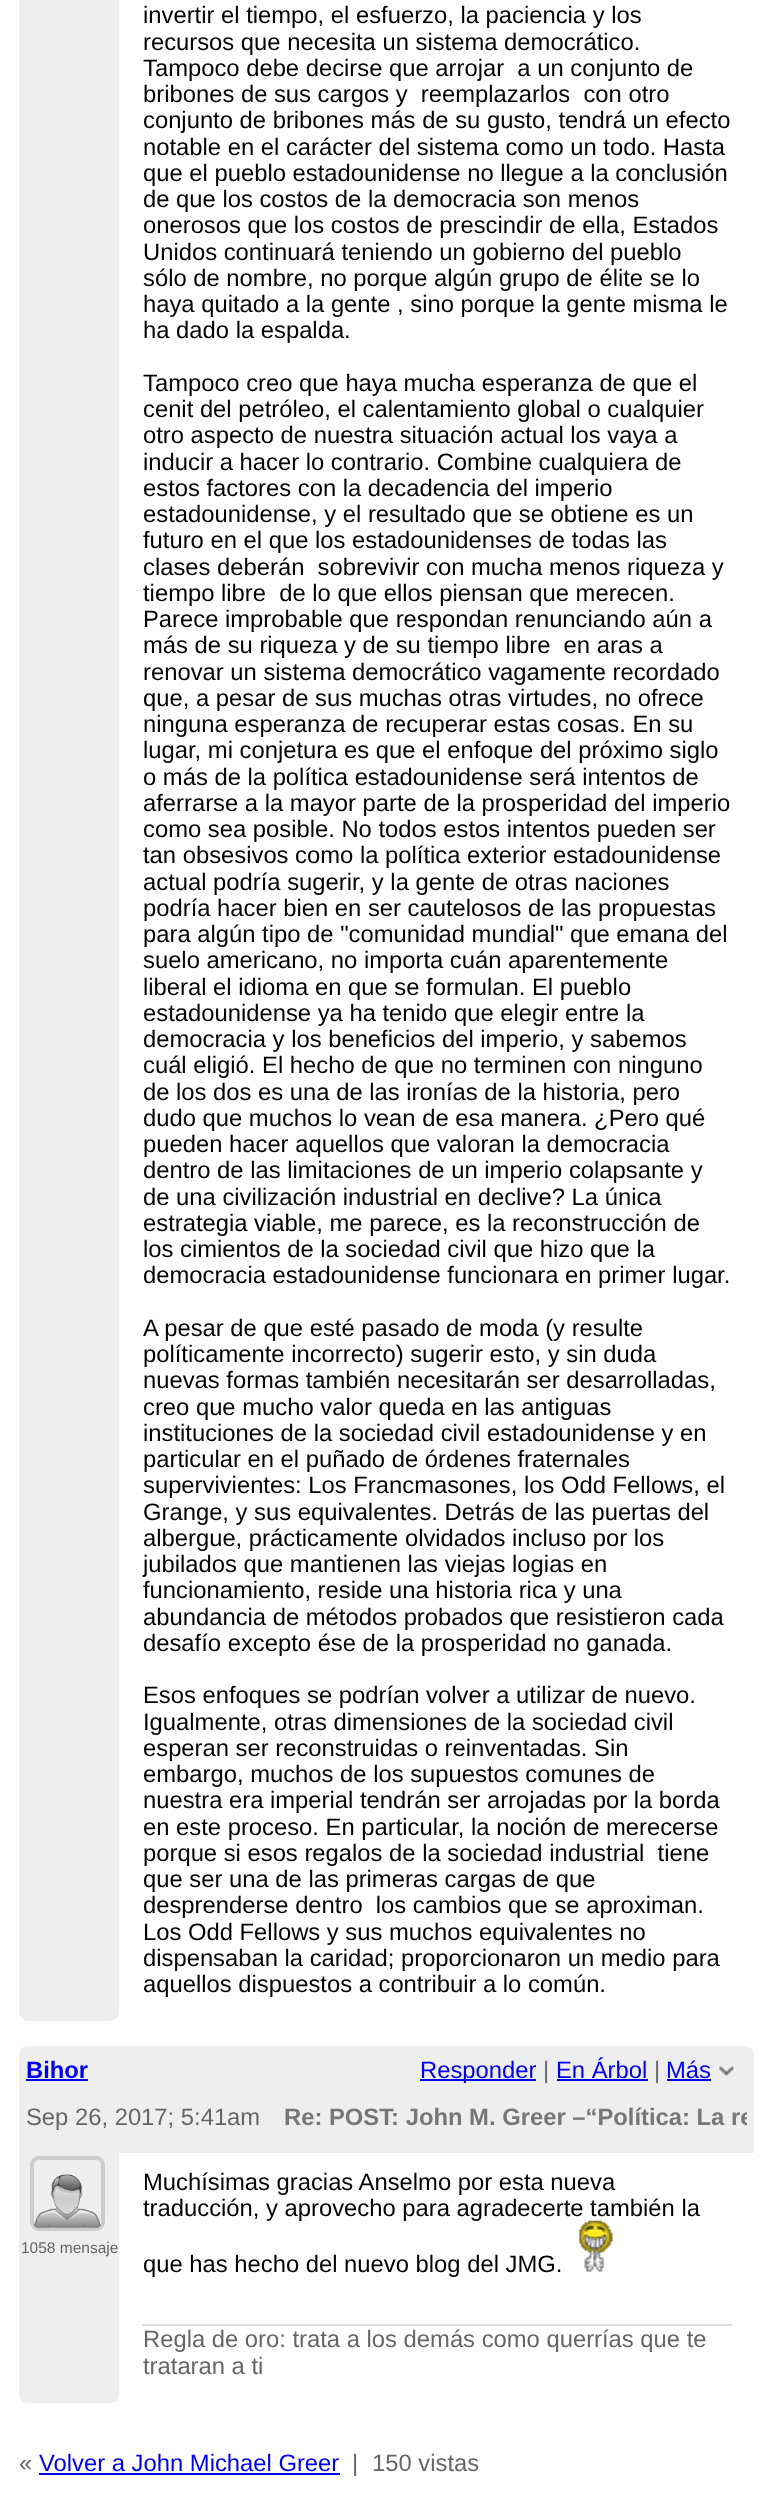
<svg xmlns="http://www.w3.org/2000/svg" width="773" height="2494">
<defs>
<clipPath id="clip1"><rect x="26" y="2105" width="721" height="30"/></clipPath>
</defs>
<rect width="100%" height="100%" fill="#fff"/>
<path d="M19-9h100v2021c0 5-4 9-9 9h-82c-5 0-9-4-9-9z" fill="#eee"/>
<text x="143" y="23" style="font-family:Liberation Sans;font-size:23.8px;fill:#000">invertir el tiempo, el esfuerzo, la paciencia y los</text>
<text x="143" y="50" style="font-family:Liberation Sans;font-size:23.8px;fill:#000">recursos que necesita un sistema democrático.</text>
<text x="143" y="76" style="font-family:Liberation Sans;font-size:23.8px;fill:#000" xml:space="preserve">Tampoco debe decirse que arrojar  a un conjunto de</text>
<text x="143" y="102" style="font-family:Liberation Sans;font-size:23.8px;fill:#000" xml:space="preserve">bribones de sus cargos y  reemplazarlos  con otro</text>
<text x="143" y="128" style="font-family:Liberation Sans;font-size:23.8px;fill:#000">conjunto de bribones más de su gusto, tendrá un efecto</text>
<text x="143" y="155" style="font-family:Liberation Sans;font-size:23.8px;fill:#000">notable en el carácter del sistema como un todo. Hasta</text>
<text x="143" y="181" style="font-family:Liberation Sans;font-size:23.8px;fill:#000">que el pueblo estadounidense no llegue a la conclusión</text>
<text x="143" y="207" style="font-family:Liberation Sans;font-size:23.8px;fill:#000">de que los costos de la democracia son menos</text>
<text x="143" y="233" style="font-family:Liberation Sans;font-size:23.8px;fill:#000">onerosos que los costos de prescindir de ella, Estados</text>
<text x="143" y="260" style="font-family:Liberation Sans;font-size:23.8px;fill:#000">Unidos continuará teniendo un gobierno del pueblo</text>
<text x="143" y="286" style="font-family:Liberation Sans;font-size:23.8px;fill:#000">sólo de nombre, no porque algún grupo de élite se lo</text>
<text x="143" y="312" style="font-family:Liberation Sans;font-size:23.8px;fill:#000">haya quitado a la gente , sino porque la gente misma le</text>
<text x="143" y="338" style="font-family:Liberation Sans;font-size:23.8px;fill:#000">ha dado la espalda.</text>
<text x="143" y="391" style="font-family:Liberation Sans;font-size:23.8px;fill:#000">Tampoco creo que haya mucha esperanza de que el</text>
<text x="143" y="417" style="font-family:Liberation Sans;font-size:23.8px;fill:#000">cenit del petróleo, el calentamiento global o cualquier</text>
<text x="143" y="443" style="font-family:Liberation Sans;font-size:23.8px;fill:#000">otro aspecto de nuestra situación actual los vaya a</text>
<text x="143" y="470" style="font-family:Liberation Sans;font-size:23.8px;fill:#000">inducir a hacer lo contrario. Combine cualquiera de</text>
<text x="143" y="496" style="font-family:Liberation Sans;font-size:23.8px;fill:#000">estos factores con la decadencia del imperio</text>
<text x="143" y="522" style="font-family:Liberation Sans;font-size:23.8px;fill:#000">estadounidense, y el resultado que se obtiene es un</text>
<text x="143" y="548" style="font-family:Liberation Sans;font-size:23.8px;fill:#000">futuro en el que los estadounidenses de todas las</text>
<text x="143" y="575" style="font-family:Liberation Sans;font-size:23.8px;fill:#000" xml:space="preserve">clases deberán  sobrevivir con mucha menos riqueza y</text>
<text x="143" y="601" style="font-family:Liberation Sans;font-size:23.8px;fill:#000" xml:space="preserve">tiempo libre  de lo que ellos piensan que merecen.</text>
<text x="143" y="627" style="font-family:Liberation Sans;font-size:23.8px;fill:#000">Parece improbable que respondan renunciando aún a</text>
<text x="143" y="653" style="font-family:Liberation Sans;font-size:23.8px;fill:#000" xml:space="preserve">más de su riqueza y de su tiempo libre  en aras a</text>
<text x="143" y="680" style="font-family:Liberation Sans;font-size:23.8px;fill:#000">renovar un sistema democrático vagamente recordado</text>
<text x="143" y="706" style="font-family:Liberation Sans;font-size:23.8px;fill:#000">que, a pesar de sus muchas otras virtudes, no ofrece</text>
<text x="143" y="732" style="font-family:Liberation Sans;font-size:23.8px;fill:#000">ninguna esperanza de recuperar estas cosas. En su</text>
<text x="143" y="758" style="font-family:Liberation Sans;font-size:23.8px;fill:#000">lugar, mi conjetura es que el enfoque del próximo siglo</text>
<text x="143" y="785" style="font-family:Liberation Sans;font-size:23.8px;fill:#000">o más de la política estadounidense será intentos de</text>
<text x="143" y="811" style="font-family:Liberation Sans;font-size:23.8px;fill:#000">aferrarse a la mayor parte de la prosperidad del imperio</text>
<text x="143" y="837" style="font-family:Liberation Sans;font-size:23.8px;fill:#000">como sea posible. No todos estos intentos pueden ser</text>
<text x="143" y="863" style="font-family:Liberation Sans;font-size:23.8px;fill:#000">tan obsesivos como la política exterior estadounidense</text>
<text x="143" y="890" style="font-family:Liberation Sans;font-size:23.8px;fill:#000">actual podría sugerir, y la gente de otras naciones</text>
<text x="143" y="916" style="font-family:Liberation Sans;font-size:23.8px;fill:#000">podría hacer bien en ser cautelosos de las propuestas</text>
<text x="143" y="942" style="font-family:Liberation Sans;font-size:23.8px;fill:#000">para algún tipo de "comunidad mundial" que emana del</text>
<text x="143" y="968" style="font-family:Liberation Sans;font-size:23.8px;fill:#000">suelo americano, no importa cuán aparentemente</text>
<text x="143" y="995" style="font-family:Liberation Sans;font-size:23.8px;fill:#000">liberal el idioma en que se formulan. El pueblo</text>
<text x="143" y="1021" style="font-family:Liberation Sans;font-size:23.8px;fill:#000">estadounidense ya ha tenido que elegir entre la</text>
<text x="143" y="1047" style="font-family:Liberation Sans;font-size:23.8px;fill:#000">democracia y los beneficios del imperio, y sabemos</text>
<text x="143" y="1073" style="font-family:Liberation Sans;font-size:23.8px;fill:#000">cuál eligió. El hecho de que no terminen con ninguno</text>
<text x="143" y="1100" style="font-family:Liberation Sans;font-size:23.8px;fill:#000">de los dos es una de las ironías de la historia, pero</text>
<text x="143" y="1126" style="font-family:Liberation Sans;font-size:23.8px;fill:#000">dudo que muchos lo vean de esa manera. ¿Pero qué</text>
<text x="143" y="1152" style="font-family:Liberation Sans;font-size:23.8px;fill:#000">pueden hacer aquellos que valoran la democracia</text>
<text x="143" y="1178" style="font-family:Liberation Sans;font-size:23.8px;fill:#000">dentro de las limitaciones de un imperio colapsante y</text>
<text x="143" y="1205" style="font-family:Liberation Sans;font-size:23.8px;fill:#000">de una civilización industrial en declive? La única</text>
<text x="143" y="1231" style="font-family:Liberation Sans;font-size:23.8px;fill:#000">estrategia viable, me parece, es la reconstrucción de</text>
<text x="143" y="1257" style="font-family:Liberation Sans;font-size:23.8px;fill:#000">los cimientos de la sociedad civil que hizo que la</text>
<text x="143" y="1283" style="font-family:Liberation Sans;font-size:23.8px;fill:#000">democracia estadounidense funcionara en primer lugar.</text>
<text x="143" y="1336" style="font-family:Liberation Sans;font-size:23.8px;fill:#000">A pesar de que esté pasado de moda (y resulte</text>
<text x="143" y="1362" style="font-family:Liberation Sans;font-size:23.8px;fill:#000">políticamente incorrecto) sugerir esto, y sin duda</text>
<text x="143" y="1388" style="font-family:Liberation Sans;font-size:23.8px;fill:#000">nuevas formas también necesitarán ser desarrolladas,</text>
<text x="143" y="1415" style="font-family:Liberation Sans;font-size:23.8px;fill:#000">creo que mucho valor queda en las antiguas</text>
<text x="143" y="1441" style="font-family:Liberation Sans;font-size:23.8px;fill:#000">instituciones de la sociedad civil estadounidense y en</text>
<text x="143" y="1467" style="font-family:Liberation Sans;font-size:23.8px;fill:#000">particular en el puñado de órdenes fraternales</text>
<text x="143" y="1493" style="font-family:Liberation Sans;font-size:23.8px;fill:#000">supervivientes: Los Francmasones, los Odd Fellows, el</text>
<text x="143" y="1520" style="font-family:Liberation Sans;font-size:23.8px;fill:#000">Grange, y sus equivalentes. Detrás de las puertas del</text>
<text x="143" y="1546" style="font-family:Liberation Sans;font-size:23.8px;fill:#000">albergue, prácticamente olvidados incluso por los</text>
<text x="143" y="1572" style="font-family:Liberation Sans;font-size:23.8px;fill:#000">jubilados que mantienen las viejas logias en</text>
<text x="143" y="1598" style="font-family:Liberation Sans;font-size:23.8px;fill:#000">funcionamiento, reside una historia rica y una</text>
<text x="143" y="1625" style="font-family:Liberation Sans;font-size:23.8px;fill:#000">abundancia de métodos probados que resistieron cada</text>
<text x="143" y="1651" style="font-family:Liberation Sans;font-size:23.8px;fill:#000">desafío excepto ése de la prosperidad no ganada.</text>
<text x="143" y="1703" style="font-family:Liberation Sans;font-size:23.8px;fill:#000">Esos enfoques se podrían volver a utilizar de nuevo.</text>
<text x="143" y="1730" style="font-family:Liberation Sans;font-size:23.8px;fill:#000">Igualmente, otras dimensiones de la sociedad civil</text>
<text x="143" y="1756" style="font-family:Liberation Sans;font-size:23.8px;fill:#000">esperan ser reconstruidas o reinventadas. Sin</text>
<text x="143" y="1782" style="font-family:Liberation Sans;font-size:23.8px;fill:#000">embargo, muchos de los supuestos comunes de</text>
<text x="143" y="1808" style="font-family:Liberation Sans;font-size:23.8px;fill:#000">nuestra era imperial tendrán ser arrojadas por la borda</text>
<text x="143" y="1835" style="font-family:Liberation Sans;font-size:23.8px;fill:#000">en este proceso. En particular, la noción de merecerse</text>
<text x="143" y="1861" style="font-family:Liberation Sans;font-size:23.8px;fill:#000" xml:space="preserve">porque si esos regalos de la sociedad industrial  tiene</text>
<text x="143" y="1887" style="font-family:Liberation Sans;font-size:23.8px;fill:#000">que ser una de las primeras cargas de que</text>
<text x="143" y="1913" style="font-family:Liberation Sans;font-size:23.8px;fill:#000" xml:space="preserve">desprenderse dentro  los cambios que se aproximan.</text>
<text x="143" y="1940" style="font-family:Liberation Sans;font-size:23.8px;fill:#000">Los Odd Fellows y sus muchos equivalentes no</text>
<text x="143" y="1966" style="font-family:Liberation Sans;font-size:23.8px;fill:#000">dispensaban la caridad; proporcionaron un medio para</text>
<text x="143" y="1992" style="font-family:Liberation Sans;font-size:23.8px;fill:#000">aquellos dispuestos a contribuir a lo común.</text>
<path d="M28 2046h717c5 0 9 4 9 9v98h-735v-98c0-5 4-9 9-9z" fill="#eee"/>
<text x="26" y="2078" style="font-family:Liberation Sans;font-size:23.8px;font-weight:bold;fill:#00e">Bihor</text>
<rect x="26" y="2079" width="62" height="2" fill="#00e"/>
<rect x="420" y="2079" width="116" height="2" fill="#00e"/>
<text x="420" y="2078" style="font-family:Liberation Sans;font-size:23.8px;fill:#00e">Responder</text>
<text x="543" y="2078" style="font-family:Liberation Sans;font-size:23.8px;fill:#666">|</text>
<text x="556" y="2078" style="font-family:Liberation Sans;font-size:23.8px;fill:#00e">En Árbol</text>
<rect x="557" y="2079" width="91" height="2" fill="#00e"/>
<text x="654" y="2078" style="font-family:Liberation Sans;font-size:23.8px;fill:#666">|</text>
<text x="666" y="2078" style="font-family:Liberation Sans;font-size:23.8px;fill:#00e">Más</text>
<rect x="667" y="2079" width="44" height="2" fill="#00e"/>
<image x="719" y="2066" width="16" height="11" href="media/1.png"/>
<text x="26" y="2125" style="font-family:Liberation Sans;font-size:23.8px;fill:#666">Sep 26, 2017; 5:41am</text>
<g clip-path="url(#clip1)">
<text x="284" y="2125" style="font-family:Liberation Sans;font-size:23.8px;font-weight:bold;fill:#777">Re: POST: John M. Greer –“Política: La re</text>
</g>
<path d="M19 2146h100v248c0 5-4 9-9 9h-82c-5 0-9-4-9-9z" fill="#eee"/>
<rect x="32" y="2158" width="71" height="71" rx="7" fill="none" stroke="#ccc" stroke-width="4"/>
<image x="34" y="2174" width="67" height="54" href="media/2.png"/>
<text x="21" y="2253" style="font-family:Liberation Sans;font-size:15.5px;fill:#666">1058 mensaje</text>
<text x="143" y="2190" style="font-family:Liberation Sans;font-size:23.8px;fill:#000">Muchísimas gracias Anselmo por esta nueva</text>
<text x="143" y="2216" style="font-family:Liberation Sans;font-size:23.8px;fill:#000">traducción, y aprovecho para agradecerte también la</text>
<text x="143" y="2272" style="font-family:Liberation Sans;font-size:23.8px;fill:#000">que has hecho del nuevo blog del JMG.</text>
<image x="578" y="2220" width="35" height="52" href="media/3.png"/>
<rect x="142" y="2324" width="590" height="2" fill="#ddd"/>
<text x="143" y="2347" style="font-family:Liberation Sans;font-size:23.8px;fill:#666">Regla de oro: trata a los demás como querrías que te</text>
<text x="143" y="2374" style="font-family:Liberation Sans;font-size:23.8px;fill:#666">trataran a ti</text>
<text x="19" y="2471" style="font-family:Liberation Sans;font-size:23.8px;fill:#666">«</text>
<text x="39" y="2471" style="font-family:Liberation Sans;font-size:23.8px;fill:#00e">Volver a John Michael Greer</text>
<rect x="39" y="2473" width="301" height="2" fill="#00e"/>
<text x="352" y="2471" style="font-family:Liberation Sans;font-size:23.8px;fill:#666">|</text>
<text x="372" y="2471" style="font-family:Liberation Sans;font-size:23.8px;fill:#666">150 vistas</text>
</svg>
